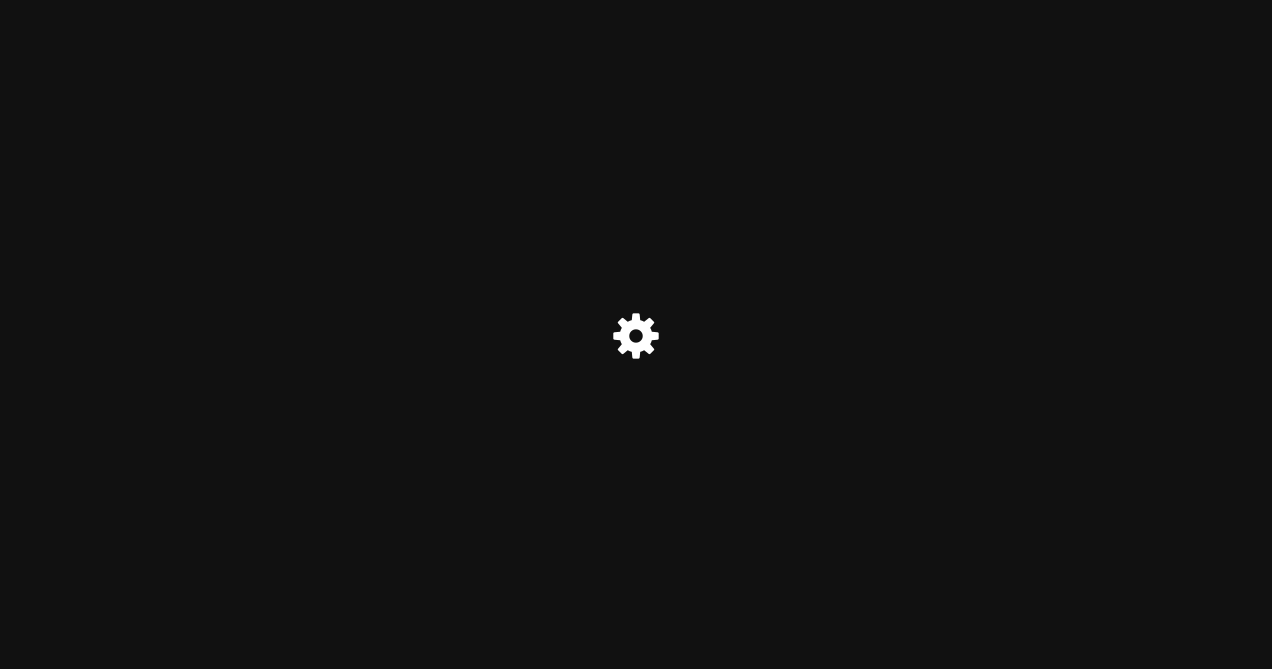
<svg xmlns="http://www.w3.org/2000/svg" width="1272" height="669">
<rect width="100%" height="100%" fill="#111"/>
<image x="613" y="313" width="46" height="46" href="media/1.png"/>
</svg>
